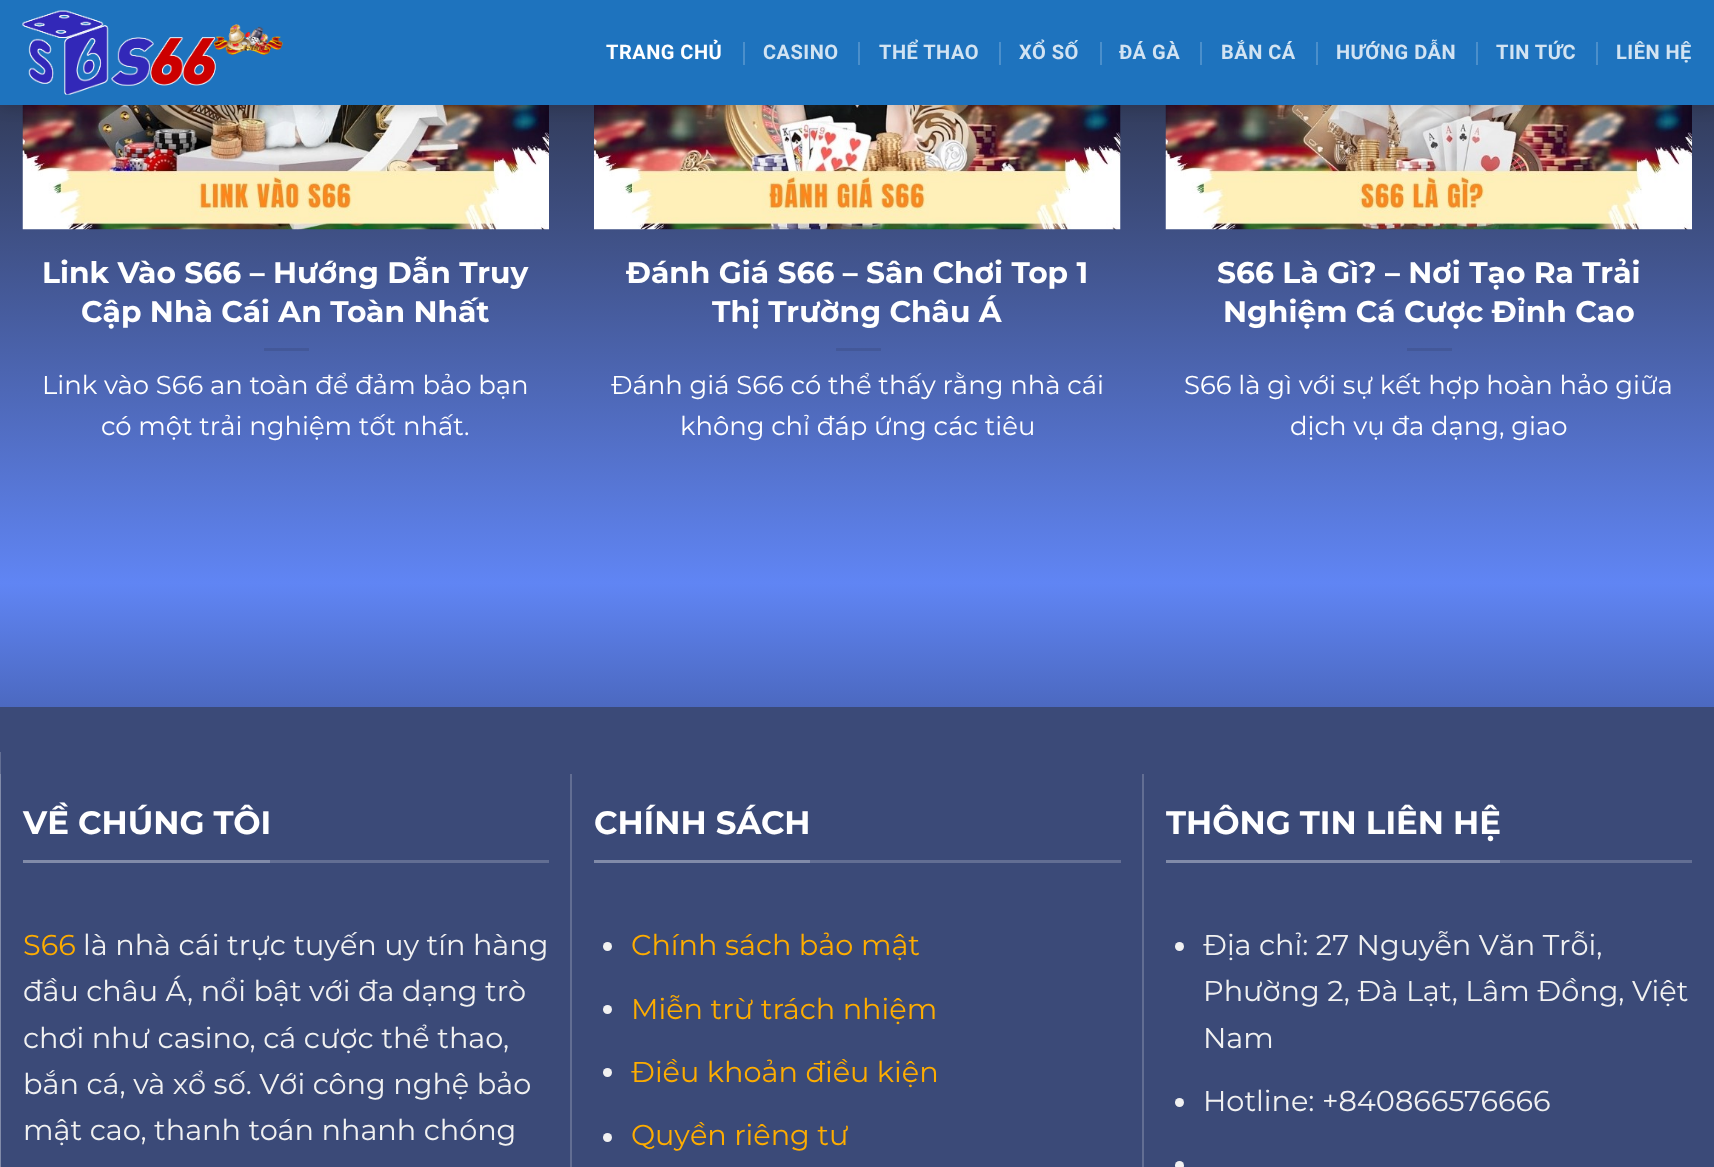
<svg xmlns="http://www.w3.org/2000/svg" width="1714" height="1167">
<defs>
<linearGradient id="g1" gradientUnits="userSpaceOnUse" x1="857" y1="0" x2="857" y2="1167"><stop offset="0" stop-color="#292d3b"/><stop offset="0.5" stop-color="#6085f4"/><stop offset="1" stop-color="#000"/></linearGradient>
</defs>
<rect width="100%" height="100%" fill="#fff"/>
<rect y="105" width="1714" height="602" fill="url(#g1)"/>
<image x="22" y="105" width="527" height="125" href="media/2.png"/>
<image x="594" y="105" width="527" height="125" href="media/3.png"/>
<image x="1165" y="105" width="527" height="125" href="media/4.png"/>
<rect x="2" y="2" width="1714" height="105" fill="#00000026" filter="blur(7.5px)"/>
<rect width="1714" height="105" fill="#1e73be"/>
<image x="22" y="10" width="261" height="85" href="media/1.png"/>
<text x="606" y="59" style="font-family:Roboto;font-size:20px;font-weight:bold;letter-spacing:0.5px;fill:#fff">TRANG CHỦ</text>
<rect x="743" y="42" width="2" height="23" fill="#4b8fcb"/>
<text x="763" y="59" style="font-family:Roboto;font-size:20px;font-weight:bold;letter-spacing:0.5px;fill:#d2e3f2">CASINO</text>
<rect x="858" y="42" width="2" height="23" fill="#4b8fcb"/>
<text x="879" y="59" style="font-family:Roboto;font-size:20px;font-weight:bold;letter-spacing:0.5px;fill:#d2e3f2">THỂ THAO</text>
<rect x="999" y="42" width="2" height="23" fill="#4b8fcb"/>
<text x="1019" y="59" style="font-family:Roboto;font-size:20px;font-weight:bold;letter-spacing:0.5px;fill:#d2e3f2">XỔ SỐ</text>
<rect x="1100" y="42" width="2" height="23" fill="#4b8fcb"/>
<text x="1119" y="59" style="font-family:Roboto;font-size:20px;font-weight:bold;letter-spacing:0.5px;fill:#d2e3f2">ĐÁ GÀ</text>
<rect x="1200" y="42" width="2" height="23" fill="#4b8fcb"/>
<text x="1221" y="59" style="font-family:Roboto;font-size:20px;font-weight:bold;letter-spacing:0.5px;fill:#d2e3f2">BẮN CÁ</text>
<rect x="1316" y="42" width="2" height="23" fill="#4b8fcb"/>
<text x="1336" y="59" style="font-family:Roboto;font-size:20px;font-weight:bold;letter-spacing:0.5px;fill:#d2e3f2">HƯỚNG DẪN</text>
<rect x="1476" y="42" width="2" height="23" fill="#4b8fcb"/>
<text x="1496" y="59" style="font-family:Roboto;font-size:20px;font-weight:bold;letter-spacing:0.5px;fill:#d2e3f2">TIN TỨC</text>
<rect x="1596" y="42" width="2" height="23" fill="#4b8fcb"/>
<text x="1616" y="59" style="font-family:Roboto;font-size:20px;font-weight:bold;letter-spacing:0.5px;fill:#d2e3f2">LIÊN HỆ</text>
<text x="42" y="283" style="font-family:Montserrat;font-size:29.75px;font-weight:bold;fill:#fff">Link Vào S66 – Hướng Dẫn Truy</text>
<text x="81" y="322" style="font-family:Montserrat;font-size:29.75px;font-weight:bold;fill:#fff">Cập Nhà Cái An Toàn Nhất</text>
<rect x="264" y="348" width="45" height="3" fill="#435899"/>
<text x="42" y="394" style="font-family:Montserrat;font-size:25.9px;fill:#fff">Link vào S66 an toàn để đảm bảo bạn</text>
<text x="101" y="435" style="font-family:Montserrat;font-size:25.9px;fill:#fff">có một trải nghiệm tốt nhất.</text>
<text x="626" y="283" style="font-family:Montserrat;font-size:29.75px;font-weight:bold;fill:#fff">Đánh Giá S66 – Sân Chơi Top 1</text>
<text x="712" y="322" style="font-family:Montserrat;font-size:29.75px;font-weight:bold;fill:#fff">Thị Trường Châu Á</text>
<rect x="836" y="348" width="45" height="3" fill="#435899"/>
<text x="611" y="394" style="font-family:Montserrat;font-size:25.9px;fill:#fff">Đánh giá S66 có thể thấy rằng nhà cái</text>
<text x="680" y="435" style="font-family:Montserrat;font-size:25.9px;fill:#fff">không chỉ đáp ứng các tiêu</text>
<text x="1217" y="283" style="font-family:Montserrat;font-size:29.75px;font-weight:bold;fill:#fff">S66 Là Gì? – Nơi Tạo Ra Trải</text>
<text x="1223" y="322" style="font-family:Montserrat;font-size:29.75px;font-weight:bold;fill:#fff">Nghiệm Cá Cược Đỉnh Cao</text>
<rect x="1407" y="348" width="45" height="3" fill="#435899"/>
<text x="1184" y="394" style="font-family:Montserrat;font-size:25.9px;fill:#fff">S66 là gì với sự kết hợp hoàn hảo giữa</text>
<text x="1290" y="435" style="font-family:Montserrat;font-size:25.9px;fill:#fff">dịch vụ đa dạng, giao</text>
<rect y="707" width="1714" height="460" fill="#3b4a78"/>
<rect y="752" width="1" height="22" fill="#626e93"/>
<rect y="774" width="1" height="393" fill="#818ba9"/>
<rect x="270" y="860" width="279" height="3" fill="#626e93"/>
<rect x="23" y="860" width="247" height="3" fill="#818ba9"/>
<text x="23" y="834" style="font-family:Montserrat;font-size:32.4px;font-weight:bold;fill:#fff">VỀ CHÚNG TÔI</text>
<text x="23" y="955" style="font-family:Montserrat;font-size:28.75px;fill:#fead00">S66</text>
<text x="83" y="955" style="font-family:Montserrat;font-size:28.75px;fill:#f1f1f1">là nhà cái trực tuyến uy tín hàng</text>
<text x="23" y="1001" style="font-family:Montserrat;font-size:28.75px;fill:#f1f1f1">đầu châu Á, nổi bật với đa dạng trò</text>
<text x="23" y="1048" style="font-family:Montserrat;font-size:28.75px;fill:#f1f1f1">chơi như casino, cá cược thể thao,</text>
<text x="23" y="1094" style="font-family:Montserrat;font-size:28.75px;fill:#f1f1f1">bắn cá, và xổ số. Với công nghệ bảo</text>
<text x="23" y="1140" style="font-family:Montserrat;font-size:28.75px;fill:#f1f1f1">mật cao, thanh toán nhanh chóng</text>
<rect x="570" y="774" width="2" height="393" fill="#626e93"/>
<rect x="810" y="860" width="311" height="3" fill="#626e93"/>
<rect x="594" y="860" width="216" height="3" fill="#818ba9"/>
<text x="594" y="834" style="font-family:Montserrat;font-size:32.4px;font-weight:bold;fill:#fff">CHÍNH SÁCH</text>
<circle cx="607.5" cy="946.5" r="4.5" fill="#f1f1f1"/>
<text x="631" y="955" style="font-family:Montserrat;font-size:28.75px;fill:#fead00">Chính sách bảo mật</text>
<circle cx="607.5" cy="1009.5" r="4.5" fill="#f1f1f1"/>
<text x="631" y="1019" style="font-family:Montserrat;font-size:28.75px;fill:#fead00">Miễn trừ trách nhiệm</text>
<circle cx="607.5" cy="1072.5" r="4.5" fill="#f1f1f1"/>
<text x="631" y="1082" style="font-family:Montserrat;font-size:28.75px;fill:#fead00">Điều khoản điều kiện</text>
<circle cx="607.5" cy="1137.5" r="4.5" fill="#f1f1f1"/>
<text x="631" y="1145" style="font-family:Montserrat;font-size:28.75px;fill:#fead00">Quyền riêng tư</text>
<rect x="1142" y="774" width="2" height="393" fill="#626e93"/>
<rect x="1500" y="860" width="192" height="3" fill="#626e93"/>
<rect x="1166" y="860" width="334" height="3" fill="#818ba9"/>
<text x="1166" y="834" style="font-family:Montserrat;font-size:32.4px;font-weight:bold;fill:#fff">THÔNG TIN LIÊN HỆ</text>
<circle cx="1179.5" cy="946.5" r="4.5" fill="#f1f1f1"/>
<text x="1203" y="955" style="font-family:Montserrat;font-size:28.75px;fill:#f1f1f1">Địa chỉ: 27 Nguyễn Văn Trỗi,</text>
<text x="1203" y="1001" style="font-family:Montserrat;font-size:28.75px;fill:#f1f1f1">Phường 2, Đà Lạt, Lâm Đồng, Việt</text>
<text x="1203" y="1048" style="font-family:Montserrat;font-size:28.75px;fill:#f1f1f1">Nam</text>
<circle cx="1179.5" cy="1102.5" r="4.5" fill="#f1f1f1"/>
<text x="1203" y="1111" style="font-family:Montserrat;font-size:28.75px;fill:#f1f1f1">Hotline: +840866576666</text>
<circle cx="1179.5" cy="1165.5" r="4.5" fill="#f1f1f1"/>
</svg>
